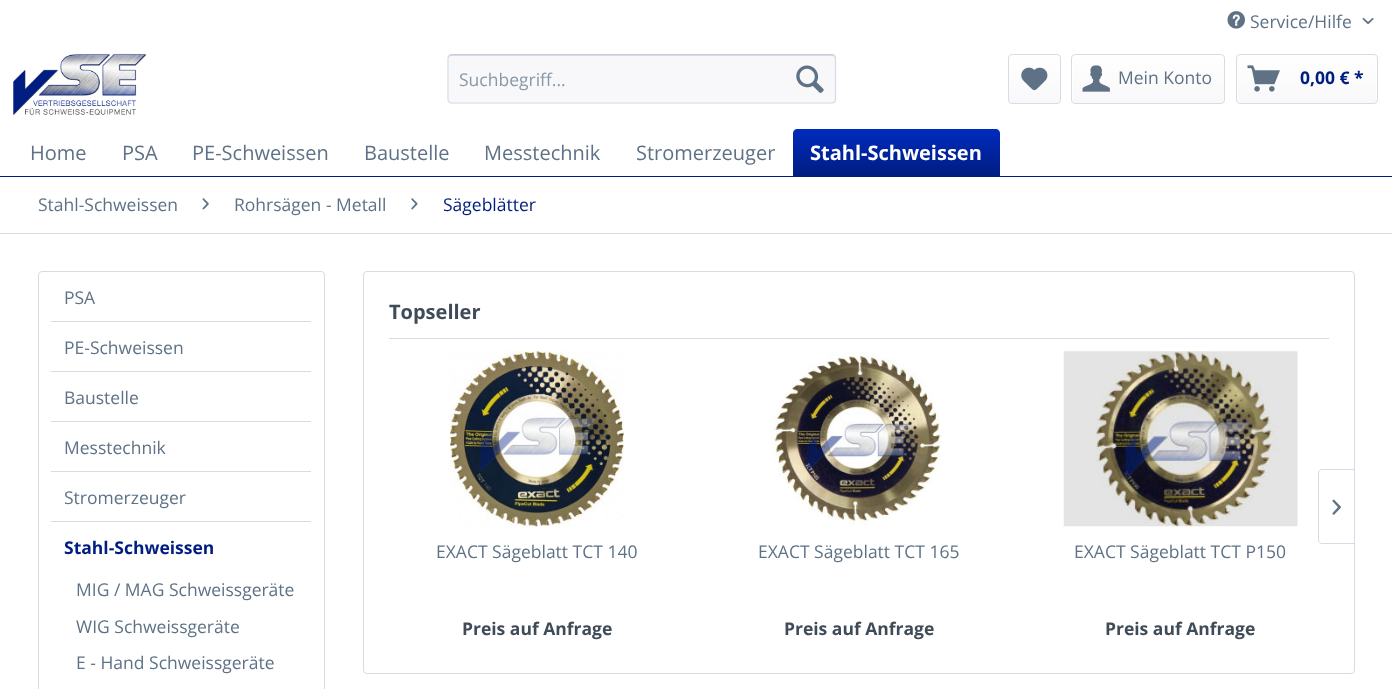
<svg xmlns="http://www.w3.org/2000/svg" width="1392" height="689">
<defs>
<linearGradient id="g1" gradientUnits="userSpaceOnUse" x1="1034" y1="55" x2="1034" y2="103"><stop offset="0" stop-color="#fff"/><stop offset="1" stop-color="#f8f8fa"/></linearGradient>
<linearGradient id="g2" gradientUnits="userSpaceOnUse" x1="1148" y1="55" x2="1148" y2="103"><stop offset="0" stop-color="#fff"/><stop offset="1" stop-color="#f8f8fa"/></linearGradient>
<linearGradient id="g3" gradientUnits="userSpaceOnUse" x1="1307" y1="55" x2="1307" y2="103"><stop offset="0" stop-color="#fff"/><stop offset="1" stop-color="#f8f8fa"/></linearGradient>
<linearGradient id="g4" gradientUnits="userSpaceOnUse" x1="896" y1="129" x2="896" y2="176"><stop offset="0" stop-color="#002bbe"/><stop offset="1" stop-color="#001d81"/></linearGradient>
</defs>
<rect width="100%" height="100%" fill="#fff"/>
<image x="1227" y="11" width="18" height="18" href="media/1.png"/>
<text x="1250" y="28" style="font-family:Open Sans;font-size:17.5px;fill:#5f7285">Service/Hilfe</text>
<image x="1362" y="17" width="12" height="8" href="media/2.png"/>
<image x="13" y="53" width="134" height="62" href="media/3.png"/>
<rect x="448" y="54" width="388" height="50" rx="4" fill="#f8f8fa"/>
<path d="M451 56h381c2 0 3 1 3 3v-3l-3-1h-380c-3 0-3 2-3 4c0-2 1-3 2-3z" fill="#dadae5"/>
<path d="M449 55.5l2-1h381.5l2 1" fill="none" stroke="#cbcbdb" stroke-width="1.2"/>
<path d="M834.5 55.5l1 2v42.5l-1 2l-2 1h-381.5l-2-1l-1-2v-42.5l1-2" fill="none" stroke="#dadae5" stroke-width="1.2"/>
<text x="459" y="86" style="font-family:Open Sans;font-size:17.5px;fill:#8798a9">Suchbegriff...</text>
<image x="796" y="65" width="28" height="28" href="media/4.png"/>
<rect x="1009" y="55" width="51" height="48" rx="2.5" fill="url(#g1)"/>
<rect x="1008.5" y="54.5" width="52" height="49" rx="3.5" fill="none" stroke="#dadae5"/>
<image x="1021" y="67" width="27" height="24" href="media/5.png"/>
<rect x="1073" y="55" width="151" height="48" rx="2.5" fill="url(#g2)"/>
<rect x="1071.5" y="54.5" width="153" height="49" rx="3.5" fill="none" stroke="#dadae5"/>
<image x="1082" y="65" width="28" height="27" href="media/6.png"/>
<text x="1118" y="84" style="font-family:Open Sans;font-size:17.5px;fill:#5f7285">Mein Konto</text>
<rect x="1238" y="55" width="138" height="48" rx="2.5" fill="url(#g3)"/>
<rect x="1236.5" y="54.5" width="141" height="49" rx="3.5" fill="none" stroke="#dadae5"/>
<image x="1247" y="65" width="33" height="27" href="media/7.png"/>
<text x="1300" y="84" style="font-family:Open Sans;font-size:17.5px;font-weight:bold;fill:#001d81">0,00 € *</text>
<rect y="176" width="1392" height="1" fill="#001d81"/>
<text x="30" y="160" style="font-family:Open Sans;font-size:20px;fill:#5f7285">Home</text>
<text x="122" y="160" style="font-family:Open Sans;font-size:20px;fill:#5f7285">PSA</text>
<text x="192" y="160" style="font-family:Open Sans;font-size:20px;fill:#5f7285">PE-Schweissen</text>
<text x="364" y="160" style="font-family:Open Sans;font-size:20px;fill:#5f7285">Baustelle</text>
<text x="484" y="160" style="font-family:Open Sans;font-size:20px;fill:#5f7285">Messtechnik</text>
<text x="636" y="160" style="font-family:Open Sans;font-size:20px;fill:#5f7285">Stromerzeuger</text>
<path d="M797 129h199c2 0 4 2 4 4v43h-207v-43c0-2 2-4 4-4z" fill="url(#g4)"/>
<text x="810" y="160" style="font-family:Open Sans;font-size:20px;font-weight:bold;fill:#fff">Stahl-Schweissen</text>
<rect y="233" width="1392" height="1" fill="#dadae5"/>
<text x="38" y="211" style="font-family:Open Sans;font-size:17.5px;fill:#5f7285">Stahl-Schweissen</text>
<image x="202" y="198" width="7" height="12" href="media/8.png"/>
<text x="234" y="211" style="font-family:Open Sans;font-size:17.5px;fill:#5f7285">Rohrsägen - Metall</text>
<image x="411" y="198" width="7" height="12" href="media/9.png"/>
<text x="443" y="211" style="font-family:Open Sans;font-size:17.5px;fill:#001d81">Sägeblätter</text>
<rect x="38.5" y="271.5" width="286" height="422" rx="3.5" fill="none" stroke="#dadae5"/>
<rect x="51" y="321" width="260" height="1" fill="#dadae5"/>
<text x="64" y="304" style="font-family:Open Sans;font-size:17.5px;fill:#5f7285">PSA</text>
<rect x="51" y="371" width="260" height="1" fill="#dadae5"/>
<text x="64" y="354" style="font-family:Open Sans;font-size:17.5px;fill:#5f7285">PE-Schweissen</text>
<rect x="51" y="421" width="260" height="1" fill="#dadae5"/>
<text x="64" y="404" style="font-family:Open Sans;font-size:17.5px;fill:#5f7285">Baustelle</text>
<rect x="51" y="471" width="260" height="1" fill="#dadae5"/>
<text x="64" y="454" style="font-family:Open Sans;font-size:17.5px;fill:#5f7285">Messtechnik</text>
<rect x="51" y="521" width="260" height="1" fill="#dadae5"/>
<text x="64" y="504" style="font-family:Open Sans;font-size:17.5px;fill:#5f7285">Stromerzeuger</text>
<text x="64" y="554" style="font-family:Open Sans;font-size:17.5px;font-weight:bold;fill:#001d81">Stahl-Schweissen</text>
<text x="76" y="596" style="font-family:Open Sans;font-size:17.5px;fill:#5f7285">MIG / MAG Schweissgeräte</text>
<text x="76" y="633" style="font-family:Open Sans;font-size:17.5px;fill:#5f7285">WIG Schweissgeräte</text>
<text x="76" y="669" style="font-family:Open Sans;font-size:17.5px;fill:#5f7285">E - Hand Schweissgeräte</text>
<rect x="363.5" y="271.5" width="991" height="402" rx="3.5" fill="none" stroke="#dadae5"/>
<rect x="389" y="338" width="940" height="1" fill="#dadae5"/>
<text x="389" y="319" style="font-family:Open Sans;font-size:20px;font-weight:bold;fill:#3f4c58">Topseller</text>
<path d="M1322 469.5h32.5v74h-32.5c-2 0-3.5-1.5-3.5-3.5v-67c0-2 1.5-3.5 3.5-3.5z" fill="none" stroke="#dadae5"/>
<image x="1332" y="499" width="9" height="16" href="media/10.png"/>
<image x="450" y="351" width="174" height="176" href="media/11.png"/>
<text x="436" y="558" style="font-family:Open Sans;font-size:17.5px;fill:#5f7285">EXACT Sägeblatt TCT 140</text>
<text x="462" y="635" style="font-family:Open Sans;font-size:17.5px;font-weight:bold;fill:#3f4c58">Preis auf Anfrage</text>
<image x="771" y="352" width="171" height="174" href="media/12.png"/>
<text x="758" y="558" style="font-family:Open Sans;font-size:17.5px;fill:#5f7285">EXACT Sägeblatt TCT 165</text>
<text x="784" y="635" style="font-family:Open Sans;font-size:17.5px;font-weight:bold;fill:#3f4c58">Preis auf Anfrage</text>
<image x="1063" y="351" width="235" height="176" href="media/13.png"/>
<text x="1074" y="558" style="font-family:Open Sans;font-size:17.5px;fill:#5f7285">EXACT Sägeblatt TCT P150</text>
<text x="1105" y="635" style="font-family:Open Sans;font-size:17.5px;font-weight:bold;fill:#3f4c58">Preis auf Anfrage</text>
</svg>
